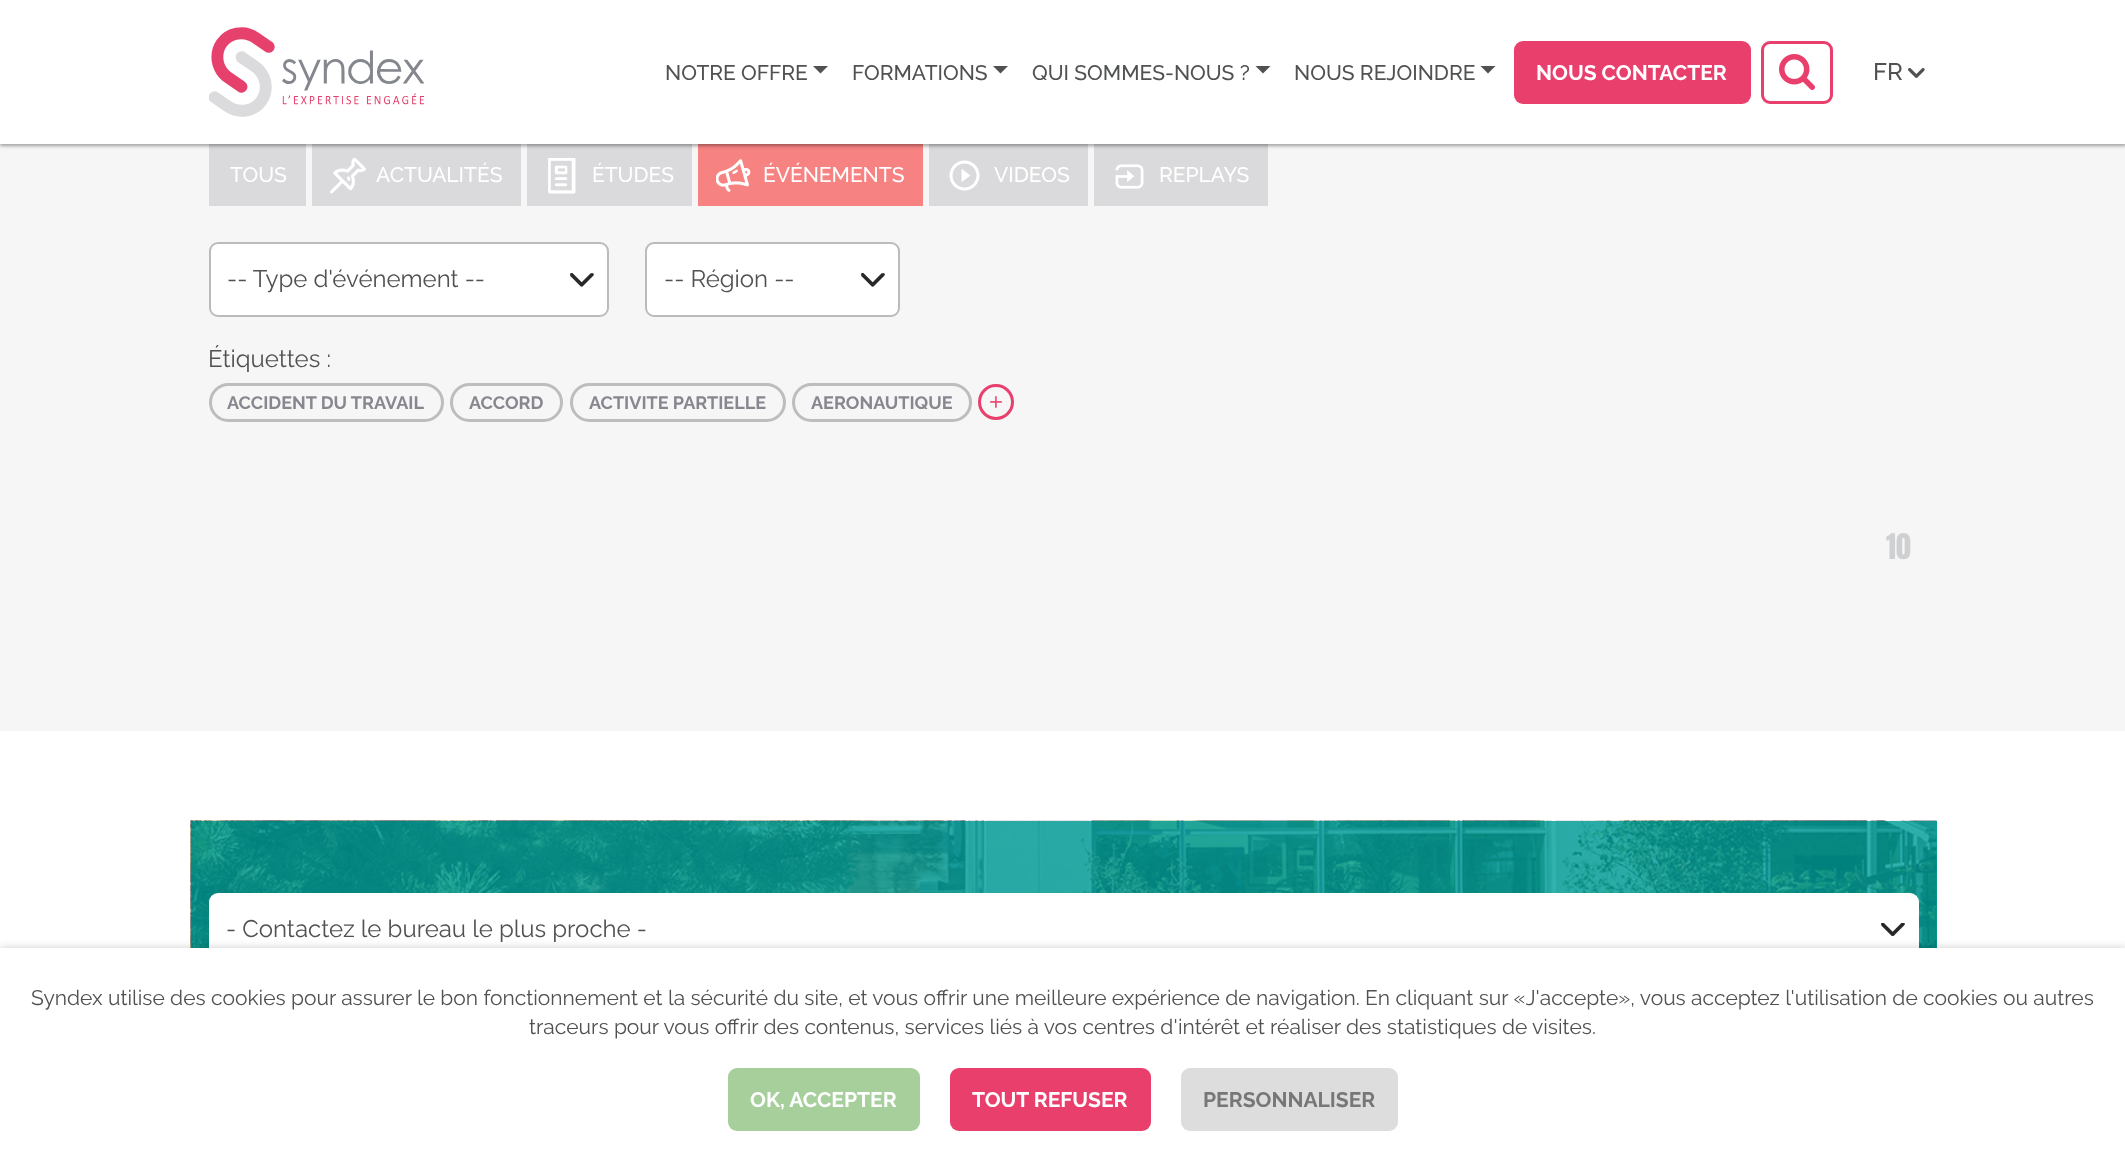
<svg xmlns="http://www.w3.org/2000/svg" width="2125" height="1156">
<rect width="100%" height="100%" fill="#fff"/>
<rect y="144" width="2125" height="587" fill="#f6f6f6"/>
<rect x="209" y="144" width="97" height="62" fill="#dadadd"/>
<rect x="312" y="144" width="209" height="62" fill="#dadadd"/>
<rect x="527" y="144" width="165" height="62" fill="#dadadd"/>
<rect x="698" y="144" width="225" height="62" fill="#f78282"/>
<rect x="929" y="144" width="159" height="62" fill="#dadadd"/>
<rect x="1094" y="144" width="174" height="62" fill="#dadadd"/>
<rect y="2" width="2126" height="144" fill="#0000003d" filter="blur(1.5px)"/>
<rect y="2" width="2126" height="144" fill="#0000001f" filter="blur(2px)"/>
<rect width="2125" height="144" fill="#fff"/>
<image x="209" y="27" width="216" height="90" href="media/1.png"/>
<text x="665" y="80" style="font-family:Raleway;font-size:21px;font-weight:500;fill:#4f5152">NOTRE OFFRE</text>
<path d="M813 66h15l-7.5 7.5z" fill="#4f5152"/>
<text x="852" y="80" style="font-family:Raleway;font-size:21px;font-weight:500;fill:#4f5152">FORMATIONS</text>
<path d="M993 66h15l-7.5 7.5z" fill="#4f5152"/>
<text x="1032" y="80" style="font-family:Raleway;font-size:21px;font-weight:500;fill:#4f5152">QUI SOMMES-NOUS ?</text>
<path d="M1255.5 66h15l-7.5 7.5z" fill="#4f5152"/>
<text x="1294" y="80" style="font-family:Raleway;font-size:21px;font-weight:500;fill:#4f5152">NOUS REJOINDRE</text>
<path d="M1480.5 66h15l-7.5 7.5z" fill="#4f5152"/>
<rect x="1514" y="41" width="237" height="63" rx="9" fill="#e93f6d"/>
<text x="1536" y="80" style="font-family:Raleway;font-size:21px;font-weight:bold;fill:#fff">NOUS CONTACTER</text>
<rect x="1762.5" y="42.5" width="69" height="60" rx="7.5" fill="none" stroke="#e93f6d" stroke-width="3"/>
<image x="1779" y="54" width="36" height="36" href="media/2.png"/>
<text x="1873" y="80" style="font-family:Raleway;font-size:24px;font-weight:500;fill:#4f5152">FR</text>
<image x="1908" y="68" width="17" height="10" href="media/3.png"/>
<text x="230" y="182" style="font-family:Raleway;font-size:21px;font-weight:500;fill:#fff">TOUS</text>
<image x="330" y="158" width="36" height="36" href="media/4.png"/>
<text x="376" y="182" style="font-family:Raleway;font-size:21px;font-weight:500;fill:#fff">ACTUALITÉS</text>
<image x="548" y="158" width="28" height="36" href="media/5.png"/>
<text x="592" y="182" style="font-family:Raleway;font-size:21px;font-weight:500;fill:#fff">ÉTUDES</text>
<image x="716" y="159" width="35" height="33" href="media/6.png"/>
<text x="763" y="182" style="font-family:Raleway;font-size:21px;font-weight:500;fill:#fff">ÉVÉNEMENTS</text>
<image x="949" y="160" width="31" height="31" href="media/7.png"/>
<text x="994" y="182" style="font-family:Raleway;font-size:21px;font-weight:500;fill:#fff">VIDEOS</text>
<image x="1115" y="164" width="29" height="25" href="media/8.png"/>
<text x="1159" y="182" style="font-family:Raleway;font-size:21px;font-weight:500;fill:#fff">REPLAYS</text>
<rect x="209" y="242" width="400" height="75" rx="9" fill="#fff"/>
<image x="570" y="273" width="24" height="14" href="media/9.png"/>
<rect x="210" y="243" width="398" height="73" rx="8" fill="none" stroke="#bbb" stroke-width="2"/>
<text x="227" y="287" style="font-family:Raleway;font-size:24px;fill:#4f5152">-- Type d'événement --</text>
<rect x="645" y="242" width="255" height="75" rx="9" fill="#fff"/>
<image x="861" y="273" width="24" height="14" href="media/9.png"/>
<rect x="646" y="243" width="253" height="73" rx="8" fill="none" stroke="#bbb" stroke-width="2"/>
<text x="664" y="287" style="font-family:Raleway;font-size:24px;fill:#4f5152">-- Région --</text>
<text x="208" y="367" style="font-family:Raleway;font-size:24px;fill:#4f5152">Étiquettes :</text>
<rect x="210.5" y="384.5" width="232" height="36" rx="18" fill="none" stroke="#bdbdbd" stroke-width="3"/>
<text x="227" y="409" style="font-family:Raleway;font-size:18px;font-weight:bold;fill:#87878f">ACCIDENT DU TRAVAIL</text>
<rect x="451.5" y="384.5" width="110" height="36" rx="18" fill="none" stroke="#bdbdbd" stroke-width="3"/>
<text x="469" y="409" style="font-family:Raleway;font-size:18px;font-weight:bold;fill:#87878f">ACCORD</text>
<rect x="571.5" y="384.5" width="213" height="36" rx="18" fill="none" stroke="#bdbdbd" stroke-width="3"/>
<text x="589" y="409" style="font-family:Raleway;font-size:18px;font-weight:bold;fill:#87878f">ACTIVITE PARTIELLE</text>
<rect x="793.5" y="384.5" width="177" height="36" rx="18" fill="none" stroke="#bdbdbd" stroke-width="3"/>
<text x="811" y="409" style="font-family:Raleway;font-size:18px;font-weight:bold;fill:#87878f">AERONAUTIQUE</text>
<circle cx="996" cy="402" r="16.5" fill="none" stroke="#e93f6d" stroke-width="3"/>
<image x="990" y="396" width="12" height="12" href="media/10.png"/>
<text x="1886" y="559" style="font-family:Anton;font-size:30px;fill:#cfd0d1">10</text>
<rect x="1936" y="821" width="1" height="127" fill="#00a09b"/>
<image x="190" y="820" width="1747" height="128" href="media/11.png"/>
<rect x="209" y="893" width="1710" height="72" rx="9" fill="#fff"/>
<image x="1881" y="923" width="24" height="13" href="media/12.png"/>
<text x="226" y="937" style="font-family:Raleway;font-size:24px;fill:#4f5152">- Contactez le bureau le plus proche -</text>
<rect y="948" width="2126" height="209" fill="#00000033" filter="blur(4.5px)"/>
<rect y="948" width="2125" height="208" fill="#fff"/>
<text x="31" y="1005" style="font-family:Raleway;font-size:21px;fill:#4f5152">Syndex utilise des cookies pour assurer le bon fonctionnement et la sécurité du site, et vous offrir une meilleure expérience de navigation. En cliquant sur «J'accepte», vous acceptez l'utilisation de cookies ou autres</text>
<text x="529" y="1034" style="font-family:Raleway;font-size:21px;fill:#4f5152">traceurs pour vous offrir des contenus, services liés à vos centres d'intérêt et réaliser des statistiques de visites.</text>
<rect x="728" y="1068" width="192" height="63" rx="9" fill="#a6cf9c"/>
<text x="750" y="1107" style="font-family:Raleway;font-size:21px;font-weight:bold;fill:#fff">OK, ACCEPTER</text>
<rect x="950" y="1068" width="201" height="63" rx="9" fill="#e93f6d"/>
<text x="972" y="1107" style="font-family:Raleway;font-size:21px;font-weight:bold;fill:#fff">TOUT REFUSER</text>
<rect x="1181" y="1068" width="217" height="63" rx="9" fill="#ddd"/>
<text x="1203" y="1107" style="font-family:Raleway;font-size:21px;font-weight:bold;fill:#777">PERSONNALISER</text>
</svg>
